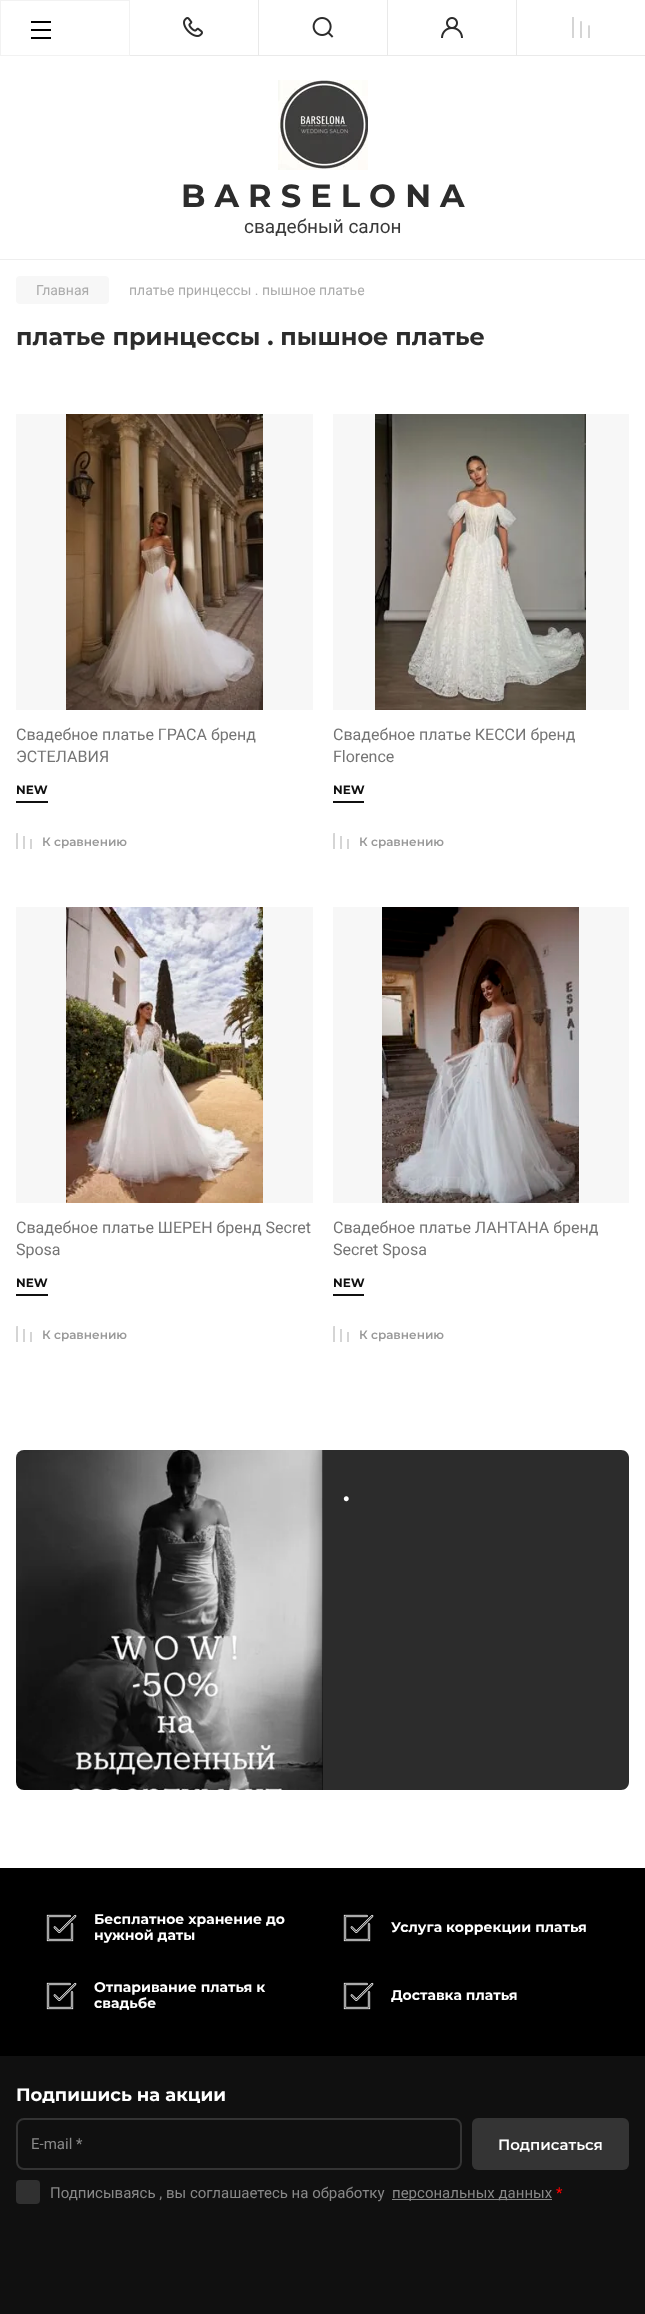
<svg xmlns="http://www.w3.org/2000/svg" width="645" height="2314">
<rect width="100%" height="100%" fill="#101010"/>
<rect width="645" height="1868" fill="#fff"/>
<rect x="0.5" y="0.5" width="129" height="55" fill="none" stroke="#f2f2f2"/>
<image x="31" y="21" width="20" height="18" href="media/1.png"/>
<rect x="130" y="55" width="128" height="1" fill="#eaeaea"/>
<image x="183" y="17" width="20" height="20" href="media/2.png"/>
<path d="M387 56h-129l1-1h128z" fill="#eaeaea"/>
<path d="M258 56v-56h1v55z" fill="#2c2c2c1a"/>
<image x="312" y="17" width="22" height="21" href="media/3.png"/>
<path d="M516 56h-129l1-1h128z" fill="#eaeaea"/>
<path d="M387 56v-56h1v55z" fill="#2c2c2c1a"/>
<image x="441" y="17" width="22" height="21" href="media/4.png"/>
<path d="M645 56h-129l1-1h128z" fill="#eaeaea"/>
<path d="M516 56v-56h1v55z" fill="#2c2c2c1a"/>
<image x="572" y="17" width="18" height="21" href="media/5.png"/>
<rect y="259" width="645" height="1" fill="#eee"/>
<image x="278" y="80" width="90" height="90" href="media/6.png"/>
<text x="181" y="207" style="font-family:Montserrat;font-size:32px;font-weight:bold;fill:#2c2c2c">B A R S E L O N A</text>
<text x="244" y="233" style="font-family:Roboto;font-size:19px;fill:#393939">свадебный салон</text>
<rect x="16" y="276" width="93" height="28" rx="4" fill="#f7f7f7"/>
<text x="36" y="295" style="font-family:Roboto;font-size:14px;fill:#ababab">Главная</text>
<text x="129" y="295" style="font-family:Roboto;font-size:14px;fill:#ababab">платье принцессы . пышное платье</text>
<text x="16" y="345" style="font-family:Montserrat;font-size:24px;font-weight:bold;fill:#2c2c2c">платье принцессы . пышное платье</text>
<image x="66" y="414" width="197" height="296" href="media/7.png"/>
<rect x="16" y="414" width="297" height="296" fill="#00000008"/>
<text x="16" y="740" style="font-family:Roboto;font-size:16px;fill:#747474">Свадебное платье ГРАСА бренд</text>
<text x="16" y="762" style="font-family:Roboto;font-size:16px;fill:#747474">ЭСТЕЛАВИЯ</text>
<rect x="16" y="801" width="32" height="2" fill="#101010"/>
<text x="16" y="794" style="font-family:Montserrat;font-size:12px;font-weight:bold;fill:#101010">NEW</text>
<image x="16" y="833" width="16" height="16" href="media/8.png"/>
<text x="42" y="846" style="font-family:Montserrat;font-size:12px;font-weight:600;fill:#999">К сравнению</text>
<image x="375" y="414" width="211" height="296" href="media/9.png"/>
<rect x="333" y="414" width="296" height="296" fill="#00000008"/>
<text x="333" y="740" style="font-family:Roboto;font-size:16px;fill:#747474">Свадебное платье КЕССИ бренд</text>
<text x="333" y="762" style="font-family:Roboto;font-size:16px;fill:#747474">Florence</text>
<rect x="333" y="801" width="31" height="2" fill="#101010"/>
<text x="333" y="794" style="font-family:Montserrat;font-size:12px;font-weight:bold;fill:#101010">NEW</text>
<image x="333" y="833" width="16" height="16" href="media/8.png"/>
<text x="359" y="846" style="font-family:Montserrat;font-size:12px;font-weight:600;fill:#999">К сравнению</text>
<image x="66" y="907" width="197" height="296" href="media/10.png"/>
<rect x="16" y="907" width="297" height="296" fill="#00000008"/>
<text x="16" y="1233" style="font-family:Roboto;font-size:16px;fill:#747474">Свадебное платье ШЕРЕН бренд Secret</text>
<text x="16" y="1255" style="font-family:Roboto;font-size:16px;fill:#747474">Sposa</text>
<rect x="16" y="1294" width="32" height="2" fill="#101010"/>
<text x="16" y="1287" style="font-family:Montserrat;font-size:12px;font-weight:bold;fill:#101010">NEW</text>
<image x="16" y="1326" width="16" height="16" href="media/8.png"/>
<text x="42" y="1339" style="font-family:Montserrat;font-size:12px;font-weight:600;fill:#999">К сравнению</text>
<image x="382" y="907" width="197" height="296" href="media/11.png"/>
<rect x="333" y="907" width="296" height="296" fill="#00000008"/>
<text x="333" y="1233" style="font-family:Roboto;font-size:16px;fill:#747474">Свадебное платье ЛАНТАНА бренд</text>
<text x="333" y="1255" style="font-family:Roboto;font-size:16px;fill:#747474">Secret Sposa</text>
<rect x="333" y="1294" width="31" height="2" fill="#101010"/>
<text x="333" y="1287" style="font-family:Montserrat;font-size:12px;font-weight:bold;fill:#101010">NEW</text>
<image x="333" y="1326" width="16" height="16" href="media/8.png"/>
<text x="359" y="1339" style="font-family:Montserrat;font-size:12px;font-weight:600;fill:#999">К сравнению</text>
<image x="16" y="1450" width="307" height="340" href="media/12.png"/>
<path d="M323 1450h298c4.5 0 8 3.5 8 8v324c0 4.5-3.5 8-8 8h-298z" fill="#2c2c2c"/>
<text x="343" y="1501" style="font-family:Montserrat;font-size:25px;font-weight:bold;fill:#fff">.</text>
<rect y="1868" width="645" height="188" fill="#000"/>
<image x="46" y="1914" width="31" height="28" href="media/13.png"/>
<text x="94" y="1924" style="font-family:Montserrat;font-size:14px;font-weight:bold;fill:#fff">Бесплатное хранение до</text>
<text x="94" y="1940" style="font-family:Montserrat;font-size:14px;font-weight:bold;fill:#fff">нужной даты</text>
<image x="343" y="1914" width="31" height="28" href="media/13.png"/>
<text x="391" y="1932" style="font-family:Montserrat;font-size:14px;font-weight:bold;fill:#fff">Услуга коррекции платья</text>
<image x="46" y="1982" width="31" height="28" href="media/13.png"/>
<text x="94" y="1992" style="font-family:Montserrat;font-size:14px;font-weight:bold;fill:#fff">Отпаривание платья к</text>
<text x="94" y="2008" style="font-family:Montserrat;font-size:14px;font-weight:bold;fill:#fff">свадьбе</text>
<image x="343" y="1982" width="31" height="28" href="media/13.png"/>
<text x="391" y="2000" style="font-family:Montserrat;font-size:14px;font-weight:bold;fill:#fff">Доставка платья</text>
<text x="16" y="2101" style="font-family:Montserrat;font-size:18px;font-weight:bold;fill:#fff">Подпишись на акции</text>
<rect x="17" y="2119" width="444" height="50" rx="7" fill="none" stroke="#343434" stroke-width="2"/>
<text x="31" y="2149" style="font-family:Roboto;font-size:15px;fill:#888">E-mail *</text>
<rect x="472" y="2118" width="157" height="52" rx="6" fill="#343434"/>
<text x="498" y="2150" style="font-family:Montserrat;font-size:15px;font-weight:600;fill:#fff">Подписаться</text>
<rect x="16" y="2180" width="24" height="24" rx="4" fill="#303030"/>
<text x="50" y="2198" style="font-family:Roboto;font-size:15px;fill:#888">Подписываясь , вы соглашаетесь на обработку</text>
<rect x="392" y="2199" width="160" height="1" fill="#888"/>
<text x="392" y="2198" style="font-family:Roboto;font-size:15px;fill:#888">персональных данных</text>
<text x="556" y="2198" style="font-family:Roboto;font-size:15px;fill:#f00">*</text>
</svg>
